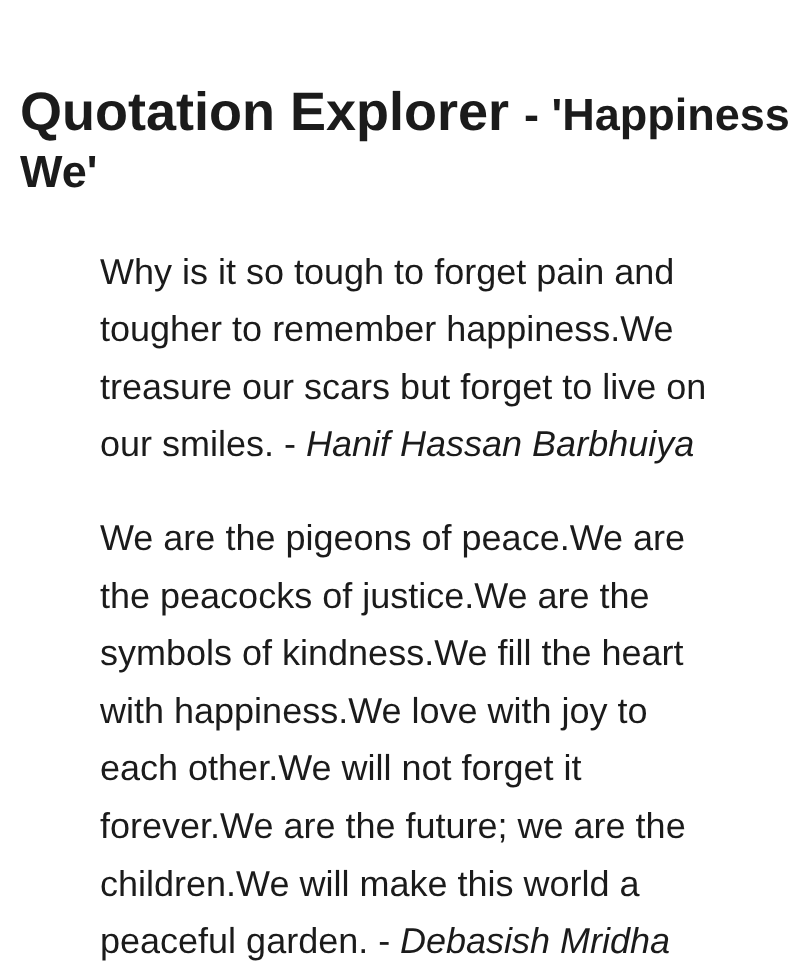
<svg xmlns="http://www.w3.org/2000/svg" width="811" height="971">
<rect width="100%" height="100%" fill="#fff"/>
<text x="20" y="130" style="font-family:Liberation Sans;font-size:54px;font-weight:bold;fill:#1b1b1b">Quotation Explorer</text>
<text x="524" y="130" style="font-family:Liberation Sans;font-size:45px;font-weight:bold;fill:#1b1b1b">- 'Happiness</text>
<text x="20" y="187" style="font-family:Liberation Sans;font-size:45px;font-weight:bold;fill:#1b1b1b">We'</text>
<text x="100" y="284" style="font-family:Liberation Sans;font-size:36px;fill:#1b1b1b">Why is it so tough to forget pain and</text>
<text x="100" y="341" style="font-family:Liberation Sans;font-size:36px;fill:#1b1b1b">tougher to remember happiness.We</text>
<text x="100" y="399" style="font-family:Liberation Sans;font-size:36px;fill:#1b1b1b">treasure our scars but forget to live on</text>
<text x="100" y="456" style="font-family:Liberation Sans;font-size:36px;fill:#1b1b1b">our smiles. -</text>
<text x="306" y="456" style="font-family:Liberation Sans;font-size:36px;font-style:italic;fill:#1b1b1b">Hanif Hassan Barbhuiya</text>
<text x="100" y="550" style="font-family:Liberation Sans;font-size:36px;fill:#1b1b1b">We are the pigeons of peace.We are</text>
<text x="100" y="608" style="font-family:Liberation Sans;font-size:36px;fill:#1b1b1b">the peacocks of justice.We are the</text>
<text x="100" y="665" style="font-family:Liberation Sans;font-size:36px;fill:#1b1b1b">symbols of kindness.We fill the heart</text>
<text x="100" y="723" style="font-family:Liberation Sans;font-size:36px;fill:#1b1b1b">with happiness.We love with joy to</text>
<text x="100" y="780" style="font-family:Liberation Sans;font-size:36px;fill:#1b1b1b">each other.We will not forget it</text>
<text x="100" y="838" style="font-family:Liberation Sans;font-size:36px;fill:#1b1b1b">forever.We are the future; we are the</text>
<text x="100" y="896" style="font-family:Liberation Sans;font-size:36px;fill:#1b1b1b">children.We will make this world a</text>
<text x="100" y="953" style="font-family:Liberation Sans;font-size:36px;fill:#1b1b1b">peaceful garden. -</text>
<text x="400" y="953" style="font-family:Liberation Sans;font-size:36px;font-style:italic;fill:#1b1b1b">Debasish Mridha</text>
</svg>
